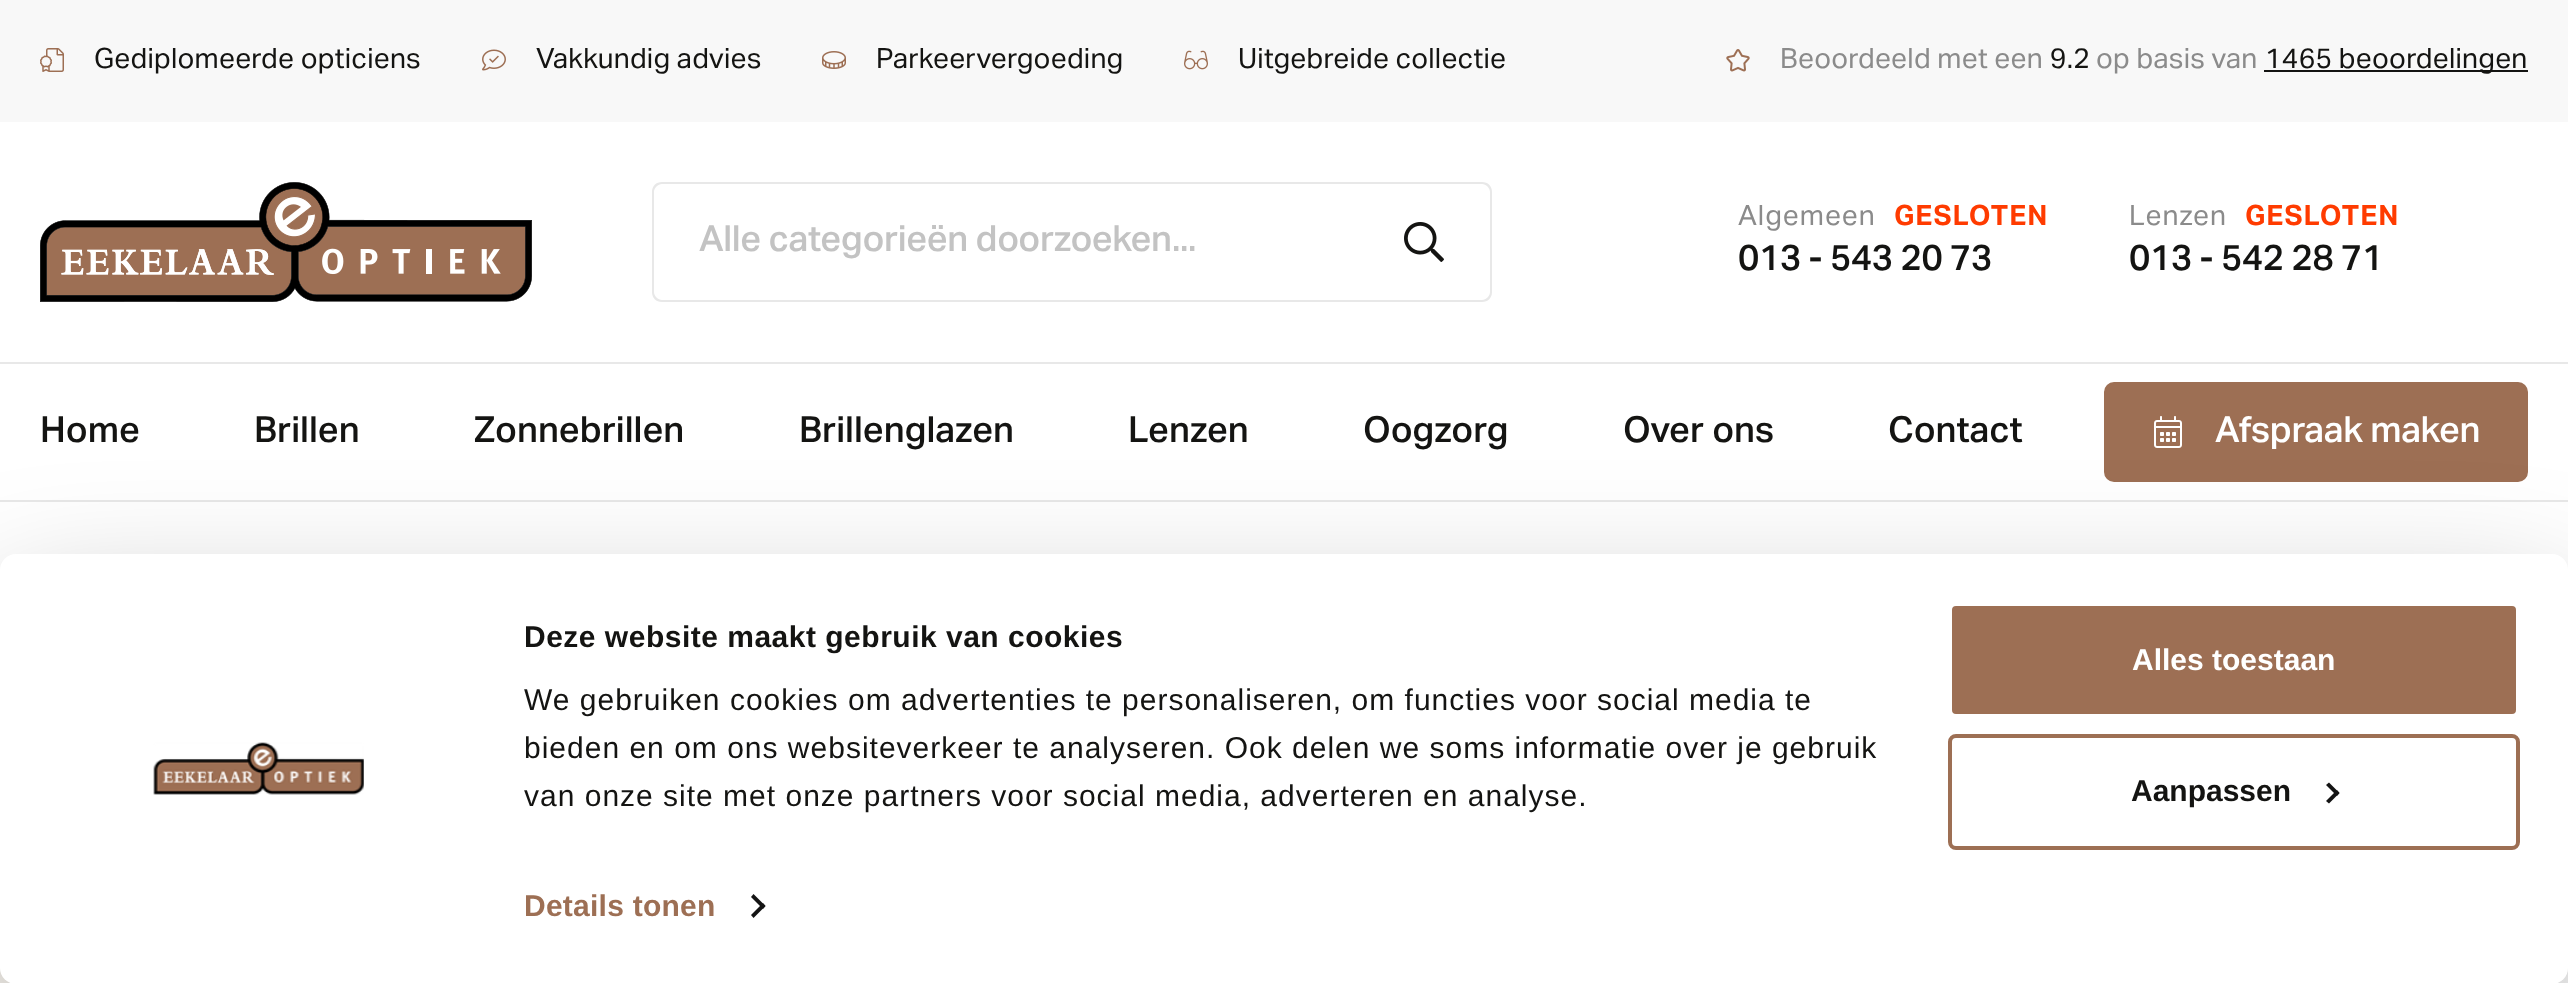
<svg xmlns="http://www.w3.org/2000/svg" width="2568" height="983">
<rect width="100%" height="100%" fill="#fff"/>
<rect width="2568" height="122" fill="#f8f8f8"/>
<image x="40" y="48" width="24" height="24" href="media/1.png"/>
<text x="94" y="68" style="font-family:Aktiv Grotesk;font-size:28px;letter-spacing:0.25px;fill:#141412">Gediplomeerde opticiens</text>
<image x="482" y="49" width="24" height="22" href="media/2.png"/>
<text x="536" y="68" style="font-family:Aktiv Grotesk;font-size:28px;letter-spacing:0.25px;fill:#141412">Vakkundig advies</text>
<image x="822" y="51" width="24" height="18" href="media/3.png"/>
<text x="876" y="68" style="font-family:Aktiv Grotesk;font-size:28px;letter-spacing:0.25px;fill:#141412">Parkeervergoeding</text>
<image x="1184" y="50" width="24" height="20" href="media/4.png"/>
<text x="1238" y="68" style="font-family:Aktiv Grotesk;font-size:28px;letter-spacing:0.25px;fill:#141412">Uitgebreide collectie</text>
<image x="1726" y="49" width="24" height="23" href="media/5.png"/>
<text x="1780" y="68" style="font-family:Aktiv Grotesk;font-size:28px;letter-spacing:0.25px;fill:#8b8b8b">Beoordeeld met een</text>
<text x="2050" y="68" style="font-family:Aktiv Grotesk;font-size:28px;letter-spacing:0.25px;fill:#141412">9.2</text>
<text x="2096" y="68" style="font-family:Aktiv Grotesk;font-size:28px;letter-spacing:0.25px;fill:#8b8b8b">op basis van</text>
<rect x="2264" y="70" width="264" height="2" fill="#141412"/>
<text x="2265" y="68" style="font-family:Aktiv Grotesk;font-size:28px;letter-spacing:0.25px;fill:#141412">1465 beoordelingen</text>
<image x="40" y="182" width="492" height="120" href="media/6.png"/>
<path d="M662 182h698v120h-698c-6 0-10-4-10-10v-100c0-6 4-10 10-10zm0 2h698v116h-698c-4 0-8-4-8-8v-100c0-4 4-8 8-8z" fill="#e8e8e8" fill-rule="evenodd"/>
<text x="699" y="251" style="font-family:Aktiv Grotesk;font-size:36px;font-weight:500;letter-spacing:-0.35px;fill:#c3c3c3">Alle categorieën doorzoeken...</text>
<path d="M1358 182h124c5.5 0 10 4.5 10 10v100c0 5.5-4.5 10-10 10h-124z" fill="#fff"/>
<path d="M1358 182h124c6 0 10 4 10 10v100c0 6-4 10-10 10h-124zm0 2h124c4 0 8 4 8 8v100c0 4-4 8-8 8h-124z" fill="#e8e8e8" fill-rule="evenodd"/>
<image x="1404" y="222" width="40" height="40" href="media/7.png"/>
<text x="1738" y="225" style="font-family:Aktiv Grotesk;font-size:28px;letter-spacing:1px;fill:#8b8b8b">Algemeen</text>
<text x="1894" y="225" style="font-family:Aktiv Grotesk;font-size:28px;font-weight:bold;letter-spacing:1px;fill:#ff3b00">GESLOTEN</text>
<text x="1738" y="270" style="font-family:Aktiv Grotesk;font-size:36px;font-weight:500;letter-spacing:-0.35px;fill:#141412">013 - 543 20 73</text>
<text x="2129" y="225" style="font-family:Aktiv Grotesk;font-size:28px;letter-spacing:1px;fill:#8b8b8b">Lenzen</text>
<text x="2245" y="225" style="font-family:Aktiv Grotesk;font-size:28px;font-weight:bold;letter-spacing:1px;fill:#ff3b00">GESLOTEN</text>
<text x="2129" y="270" style="font-family:Aktiv Grotesk;font-size:36px;font-weight:500;letter-spacing:-0.35px;fill:#141412">013 - 542 28 71</text>
<rect y="500" width="2568" height="2" fill="#e8e8e8"/>
<rect y="362" width="2568" height="2" fill="#e8e8e8"/>
<text x="40" y="442" style="font-family:Aktiv Grotesk;font-size:36px;font-weight:500;fill:#141412">Home</text>
<text x="254" y="442" style="font-family:Aktiv Grotesk;font-size:36px;font-weight:500;fill:#141412">Brillen</text>
<text x="474" y="442" style="font-family:Aktiv Grotesk;font-size:36px;font-weight:500;fill:#141412">Zonnebrillen</text>
<text x="799" y="442" style="font-family:Aktiv Grotesk;font-size:36px;font-weight:500;fill:#141412">Brillenglazen</text>
<text x="1128" y="442" style="font-family:Aktiv Grotesk;font-size:36px;font-weight:500;fill:#141412">Lenzen</text>
<text x="1363" y="442" style="font-family:Aktiv Grotesk;font-size:36px;font-weight:500;fill:#141412">Oogzorg</text>
<text x="1623" y="442" style="font-family:Aktiv Grotesk;font-size:36px;font-weight:500;fill:#141412">Over ons</text>
<text x="1888" y="442" style="font-family:Aktiv Grotesk;font-size:36px;font-weight:500;fill:#141412">Contact</text>
<rect x="2105" y="383" width="422" height="98" rx="9" fill="#9d6f54" stroke="#9d6f54" stroke-width="2"/>
<image x="2154" y="416" width="28" height="32" href="media/8.png"/>
<text x="2215" y="442" style="font-family:Aktiv Grotesk;font-size:36px;font-weight:500;letter-spacing:-0.35px;fill:#fff">Afspraak maken</text>
<rect y="968" width="11" height="15" fill="#fdfaf4"/>
<rect y="614" width="2568" height="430" rx="16" fill="#0000004d" filter="blur(70px)"/>
<rect y="554" width="2568" height="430" rx="16" fill="#fff"/>
<image x="153" y="742" width="211" height="53" href="media/9.png"/>
<text x="524" y="647" style="font-family:Liberation Sans;font-size:30px;font-weight:bold;letter-spacing:0.5px;fill:#141412">Deze website maakt gebruik van cookies</text>
<text x="524" y="710" style="font-family:Liberation Sans;font-size:30px;letter-spacing:1px;fill:#141412">We gebruiken cookies om advertenties te personaliseren, om functies voor social media te</text>
<text x="524" y="758" style="font-family:Liberation Sans;font-size:30px;letter-spacing:1px;fill:#141412">bieden en om ons websiteverkeer te analyseren. Ook delen we soms informatie over je gebruik</text>
<text x="524" y="806" style="font-family:Liberation Sans;font-size:30px;letter-spacing:1px;fill:#141412">van onze site met onze partners voor social media, adverteren en analyse.</text>
<text x="524" y="916" style="font-family:Liberation Sans;font-size:30px;font-weight:bold;letter-spacing:0.25px;fill:#9d6f54">Details tonen</text>
<path d="M753.5 894l12 12l-2.5 3l-12-12z" fill="#141414"/>
<path d="M763 903l2.5 3l-12 12l-2.5-3z" fill="#141414"/>
<rect x="1950" y="604" width="568" height="112" rx="6" fill="#9d6f54" stroke="#fff" stroke-width="4"/>
<text x="2132" y="670" style="font-family:Liberation Sans;font-size:30px;font-weight:bold;fill:#fff">Alles toestaan</text>
<rect x="1950" y="736" width="568" height="112" rx="6" fill="none" stroke="#9d6f54" stroke-width="4"/>
<text x="2131" y="801" style="font-family:Liberation Sans;font-size:30px;font-weight:bold;fill:#141412">Aanpassen</text>
<path d="M2329 782.5l10.5 10.5l-2.5 3l-11-11z" fill="#141414"/>
<path d="M2337 790l2.5 3l-10.5 10.5l-3-2.5z" fill="#141414"/>
</svg>
